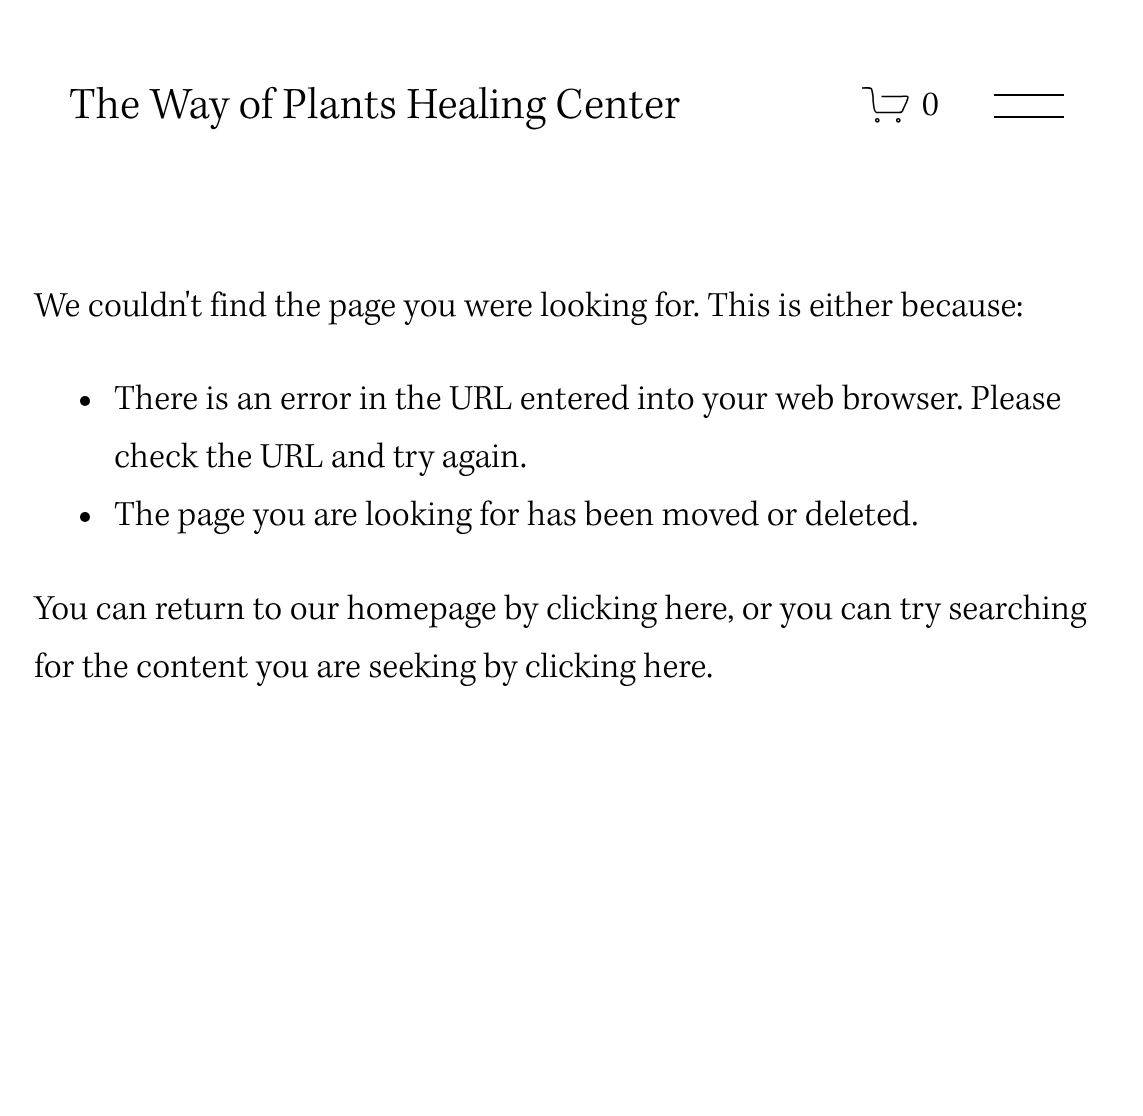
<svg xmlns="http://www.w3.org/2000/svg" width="1143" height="1116">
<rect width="100%" height="100%" fill="#fff"/>
<text x="69" y="118" style="font-family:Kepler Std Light;font-size:45.75px;font-weight:300;fill:#000">The Way of Plants Healing Center</text>
<circle cx="898.3" cy="120.3" r="1.6" fill="none" stroke="#000" stroke-width="1.6"/>
<circle cx="877.3" cy="120.3" r="1.6" fill="none" stroke="#000" stroke-width="1.6"/>
<path d="M862 88c10.5 0 9.5-2 11 8.5c0 2.5 .5 15.5 3.5 16h20c5 0 5.5 .5 7-4l3-6.5c3-8 2-5.5-8-5.5h-17" fill="none" stroke="#000" stroke-width="1.6"/>
<text x="922" y="115" style="font-family:Kepler Std Light;font-size:36.1px;font-weight:300;fill:#000">0</text>
<rect x="994" y="94" width="70" height="2" fill="#000"/>
<rect x="994" y="116" width="70" height="2" fill="#000"/>
<text x="34" y="316" style="font-family:Kepler Std Light;font-size:36.1px;font-weight:300;fill:#000">We couldn't find the page you were looking for. This is either because:</text>
<circle cx="85" cy="401" r="5" fill="#000"/>
<text x="114" y="409" style="font-family:Kepler Std Light;font-size:36.1px;font-weight:300;fill:#000">There is an error in the URL entered into your web browser. Please</text>
<text x="114" y="467" style="font-family:Kepler Std Light;font-size:36.1px;font-weight:300;fill:#000">check the URL and try again.</text>
<circle cx="85" cy="517" r="5" fill="#000"/>
<text x="114" y="525" style="font-family:Kepler Std Light;font-size:36.1px;font-weight:300;fill:#000">The page you are looking for has been moved or deleted.</text>
<text x="34" y="619" style="font-family:Kepler Std Light;font-size:36.1px;font-weight:300;fill:#000">You can return to our homepage by</text>
<text x="546" y="619" style="font-family:Kepler Std Light;font-size:36.1px;font-weight:300;fill:#000">clicking here, or you can try searching</text>
<text x="34" y="677" style="font-family:Kepler Std Light;font-size:36.1px;font-weight:300;fill:#000">for the content you are seeking by clicking here.</text>
</svg>
